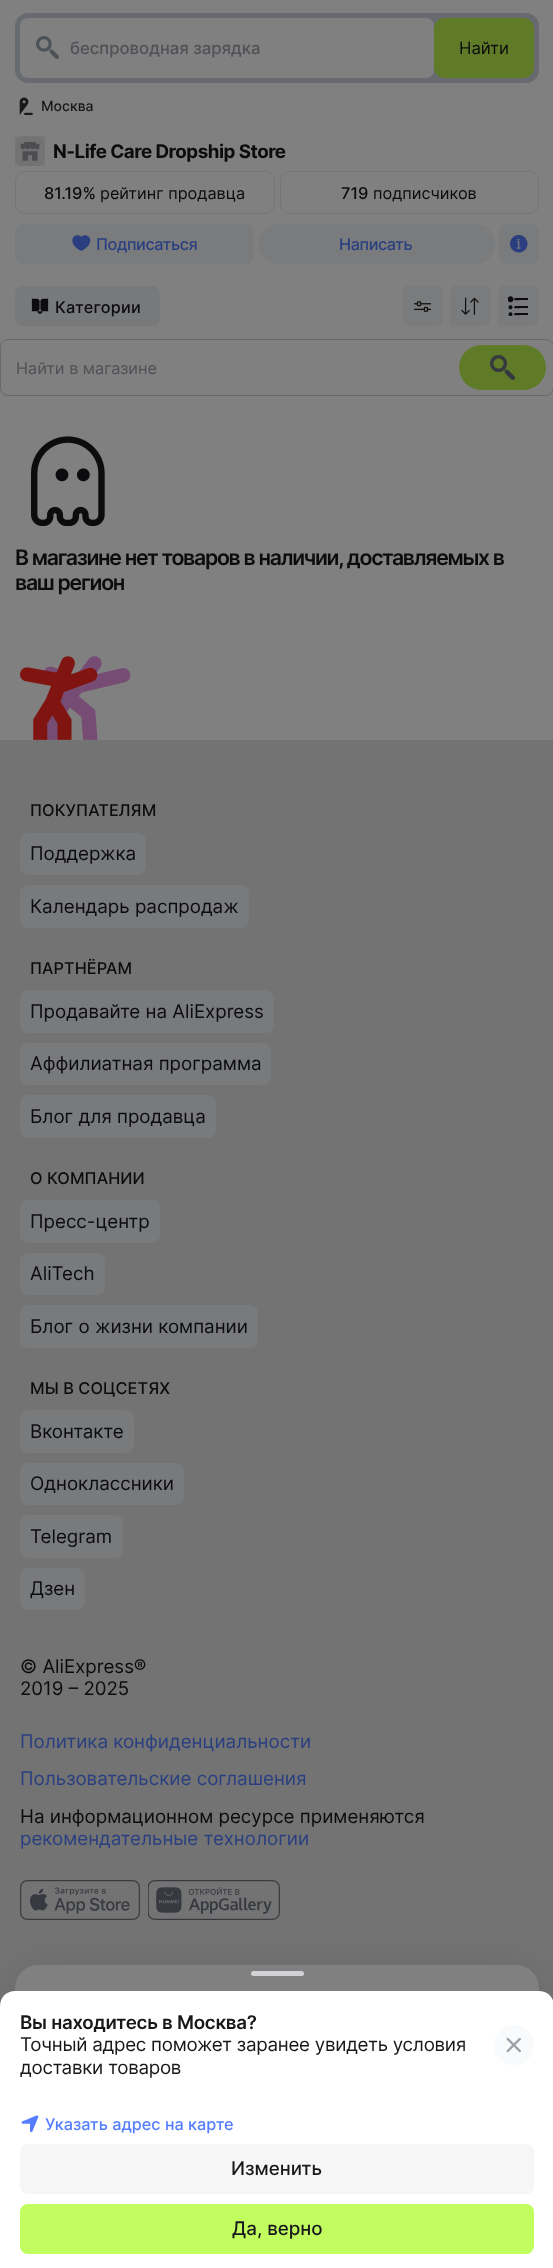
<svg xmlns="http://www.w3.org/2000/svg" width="553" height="2268">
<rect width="100%" height="100%" fill="#808080"/>
<rect x="15" y="13" width="524" height="70" rx="13" fill="#676b70"/>
<rect x="20" y="18" width="414" height="60" rx="8" fill="#808080"/>
<image x="36" y="36" width="23" height="23" href="media/1.png"/>
<text x="70" y="54" style="font-family:Inter;font-size:16.75px;font-weight:500;fill:#505056">беспроводная зарядка</text>
<rect x="434" y="18" width="100" height="60" rx="10" fill="#5f7b28"/>
<text x="459" y="54" style="font-family:Inter;font-size:16.75px;fill:#0c0c0e">Найти</text>
<image x="19" y="97" width="14" height="18" href="media/2.png"/>
<text x="41" y="111" style="font-family:Inter;font-size:14px;font-weight:500;fill:#18181b">Москва</text>
<image x="15" y="136" width="30" height="30" href="media/3.png"/>
<rect x="15" y="136" width="30" height="30" fill="#1111110f"/>
<text x="53" y="158" style="font-family:Inter;font-size:18.75px;font-weight:bold;letter-spacing:-0.5px;fill:#0c0c0e">N-Life Care Dropship Store</text>
<rect x="15.5" y="171.5" width="259" height="42" rx="9.5" fill="none" stroke="#737578"/>
<text x="44" y="199" style="font-family:Inter;font-size:16.25px;font-weight:500;fill:#0c0c0e">81.19%</text>
<text x="100" y="199" style="font-family:Inter;font-size:16.25px;fill:#0c0c0e">рейтинг продавца</text>
<rect x="280.5" y="171.5" width="258" height="42" rx="9.5" fill="none" stroke="#737578"/>
<text x="341" y="199" style="font-family:Inter;font-size:16.25px;font-weight:500;fill:#0c0c0e">719</text>
<text x="373" y="199" style="font-family:Inter;font-size:16.25px;fill:#0c0c0e">подписчиков</text>
<rect x="15" y="224" width="239" height="40" rx="8" fill="#7a7b7d"/>
<image x="72" y="235" width="19" height="16" href="media/4.png"/>
<text x="96" y="250" style="font-family:Inter;font-size:16.25px;font-weight:500;letter-spacing:-0.4px;fill:#2a3f80">Подписаться</text>
<rect x="258" y="224" width="237" height="40" rx="20" fill="#7a7b7d"/>
<text x="339" y="250" style="font-family:Inter;font-size:16.25px;font-weight:500;letter-spacing:-0.4px;fill:#2a3f80">Написать</text>
<rect x="499" y="224" width="40" height="40" rx="8" fill="#7a7b7d"/>
<image x="510" y="235" width="18" height="18" href="media/5.png"/>
<rect x="15" y="286" width="145" height="40" rx="8" fill="#77797b"/>
<image x="31" y="298" width="18" height="16" href="media/6.png"/>
<text x="55" y="313" style="font-family:Inter;font-size:16.25px;font-weight:500;letter-spacing:0.25px;fill:#0c0c0e">Категории</text>
<rect x="403" y="286" width="40" height="40" rx="5" fill="#7a7b7d"/>
<image x="414" y="301" width="17" height="11" href="media/7.png"/>
<rect x="450" y="286" width="40" height="40" rx="5" fill="#7a7b7d"/>
<image x="461" y="297" width="18" height="18" href="media/8.png"/>
<rect x="498" y="286" width="40" height="40" rx="5" fill="#7a7b7d"/>
<image x="508" y="296" width="20" height="20" href="media/9.png"/>
<rect x="0.5" y="339.5" width="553" height="56" rx="7.5" fill="none" stroke="#676b70"/>
<text x="16" y="374" style="font-family:Inter;font-size:16.25px;fill:#505056">Найти в магазине</text>
<rect x="459" y="345" width="87" height="45" rx="22.5" fill="#5f7b28"/>
<image x="490" y="355" width="25" height="25" href="media/10.png"/>
<image x="31" y="436" width="74" height="90" href="media/11.png"/>
<text x="15" y="565" style="font-family:Inter;font-size:21.25px;font-weight:600;letter-spacing:-1.25px;fill:#0c0c0e">В магазине нет товаров в наличии, доставляемых в</text>
<text x="15" y="590" style="font-family:Inter;font-size:21.25px;font-weight:600;letter-spacing:-1.25px;fill:#0c0c0e">ваш регион</text>
<rect y="740" width="553" height="1266" fill="#737373"/>
<image x="20" y="1880" width="120" height="40" href="media/13.png"/>
<image x="148" y="1880" width="132" height="40" href="media/14.png"/>
<rect x="15" y="1970" width="524" height="223" rx="23" fill="#0000001a" filter="blur(19px)"/>
<rect x="15" y="1965" width="524" height="223" rx="23" fill="#808080"/>
<image x="20" y="656" width="111" height="84" href="media/12.png"/>
<text x="30" y="816" style="font-family:Inter;font-size:16.25px;font-weight:500;letter-spacing:0.1px;fill:#0c0c0e">ПОКУПАТЕЛЯМ</text>
<rect x="20" y="833" width="126" height="42" rx="8" fill="#787a7c"/>
<text x="30" y="860" style="font-family:Inter;font-size:18.75px;fill:#0c0c0e">Поддержка</text>
<rect x="20" y="885" width="229" height="43" rx="8" fill="#787a7c"/>
<text x="30" y="913" style="font-family:Inter;font-size:18.75px;fill:#0c0c0e">Календарь распродаж</text>
<text x="30" y="974" style="font-family:Inter;font-size:16.25px;font-weight:500;letter-spacing:0.1px;fill:#0c0c0e">ПАРТНЁРАМ</text>
<rect x="20" y="990" width="254" height="43" rx="8" fill="#787a7c"/>
<text x="30" y="1018" style="font-family:Inter;font-size:18.75px;fill:#0c0c0e">Продавайте на AliExpress</text>
<rect x="20" y="1043" width="251" height="42" rx="8" fill="#787a7c"/>
<text x="30" y="1070" style="font-family:Inter;font-size:18.75px;fill:#0c0c0e">Аффилиатная программа</text>
<rect x="20" y="1095" width="196" height="43" rx="8" fill="#787a7c"/>
<text x="30" y="1123" style="font-family:Inter;font-size:18.75px;fill:#0c0c0e">Блог для продавца</text>
<text x="30" y="1184" style="font-family:Inter;font-size:16.25px;font-weight:500;letter-spacing:0.1px;fill:#0c0c0e">О КОМПАНИИ</text>
<rect x="20" y="1200" width="140" height="43" rx="8" fill="#787a7c"/>
<text x="30" y="1228" style="font-family:Inter;font-size:18.75px;fill:#0c0c0e">Пресс-центр</text>
<rect x="20" y="1253" width="85" height="42" rx="8" fill="#787a7c"/>
<text x="30" y="1280" style="font-family:Inter;font-size:18.75px;fill:#0c0c0e">AliTech</text>
<rect x="20" y="1305" width="238" height="43" rx="8" fill="#787a7c"/>
<text x="30" y="1333" style="font-family:Inter;font-size:18.75px;fill:#0c0c0e">Блог о жизни компании</text>
<text x="30" y="1394" style="font-family:Inter;font-size:16.25px;font-weight:500;letter-spacing:0.1px;fill:#0c0c0e">МЫ В СОЦСЕТЯХ</text>
<rect x="20" y="1410" width="114" height="43" rx="8" fill="#787a7c"/>
<text x="30" y="1438" style="font-family:Inter;font-size:18.75px;fill:#0c0c0e">Вконтакте</text>
<rect x="20" y="1463" width="164" height="42" rx="8" fill="#787a7c"/>
<text x="30" y="1490" style="font-family:Inter;font-size:18.75px;fill:#0c0c0e">Одноклассники</text>
<rect x="20" y="1515" width="103" height="43" rx="8" fill="#787a7c"/>
<text x="30" y="1543" style="font-family:Inter;font-size:18.75px;fill:#0c0c0e">Telegram</text>
<rect x="20" y="1568" width="65" height="42" rx="8" fill="#787a7c"/>
<text x="30" y="1595" style="font-family:Inter;font-size:18.75px;fill:#0c0c0e">Дзен</text>
<text x="20" y="1673" style="font-family:Inter;font-size:18.75px;fill:#0c0c0e">© AliExpress®</text>
<text x="20" y="1695" style="font-family:Inter;font-size:18.75px;fill:#0c0c0e">2019 – 2025</text>
<text x="20" y="1748" style="font-family:Inter;font-size:18.75px;fill:#2a3f80">Политика конфиденциальности</text>
<text x="20" y="1785" style="font-family:Inter;font-size:18.75px;fill:#2a3f80">Пользовательские соглашения</text>
<text x="20" y="1823" style="font-family:Inter;font-size:18.75px;fill:#0c0c0e">На информационном ресурсе применяются</text>
<text x="20" y="1845" style="font-family:Inter;font-size:18.75px;fill:#2a3f80">рекомендательные технологии</text>
<path d="M15 1991h524c8.5 0 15 6.5 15 15v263h-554v-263c0-8.5 6.5-15 15-15z" fill="#fff"/>
<rect x="251" y="1971" width="53" height="5" rx="2.5" fill="#d1d1d6"/>
<text x="20" y="2029" style="font-family:Inter;font-size:18.75px;font-weight:600;letter-spacing:-0.25px;fill:#18181b">Вы находитесь в Москва?</text>
<text x="20" y="2051" style="font-family:Inter;font-size:18.75px;letter-spacing:-0.25px;fill:#18181b">Точный адрес поможет заранее увидеть условия</text>
<text x="20" y="2074" style="font-family:Inter;font-size:18.75px;letter-spacing:-0.25px;fill:#18181b">доставки товаров</text>
<circle cx="514" cy="2045" r="20" fill="#f8fafc"/>
<image x="506" y="2038" width="15" height="15" href="media/15.png"/>
<image x="21" y="2115" width="18" height="18" href="media/16.png"/>
<text x="45" y="2130" style="font-family:Inter;font-size:16.25px;font-weight:500;fill:#547dff">Указать адрес на карте</text>
<rect x="20" y="2144" width="514" height="50" rx="8" fill="#f6f6f6"/>
<text x="231" y="2175" style="font-family:Inter;font-size:18.75px;font-weight:500;fill:#18181b">Изменить</text>
<rect x="20" y="2204" width="514" height="50" rx="8" fill="#c2fd60"/>
<text x="232" y="2235" style="font-family:Inter;font-size:18.75px;font-weight:500;fill:#18181b">Да, верно</text>
</svg>
